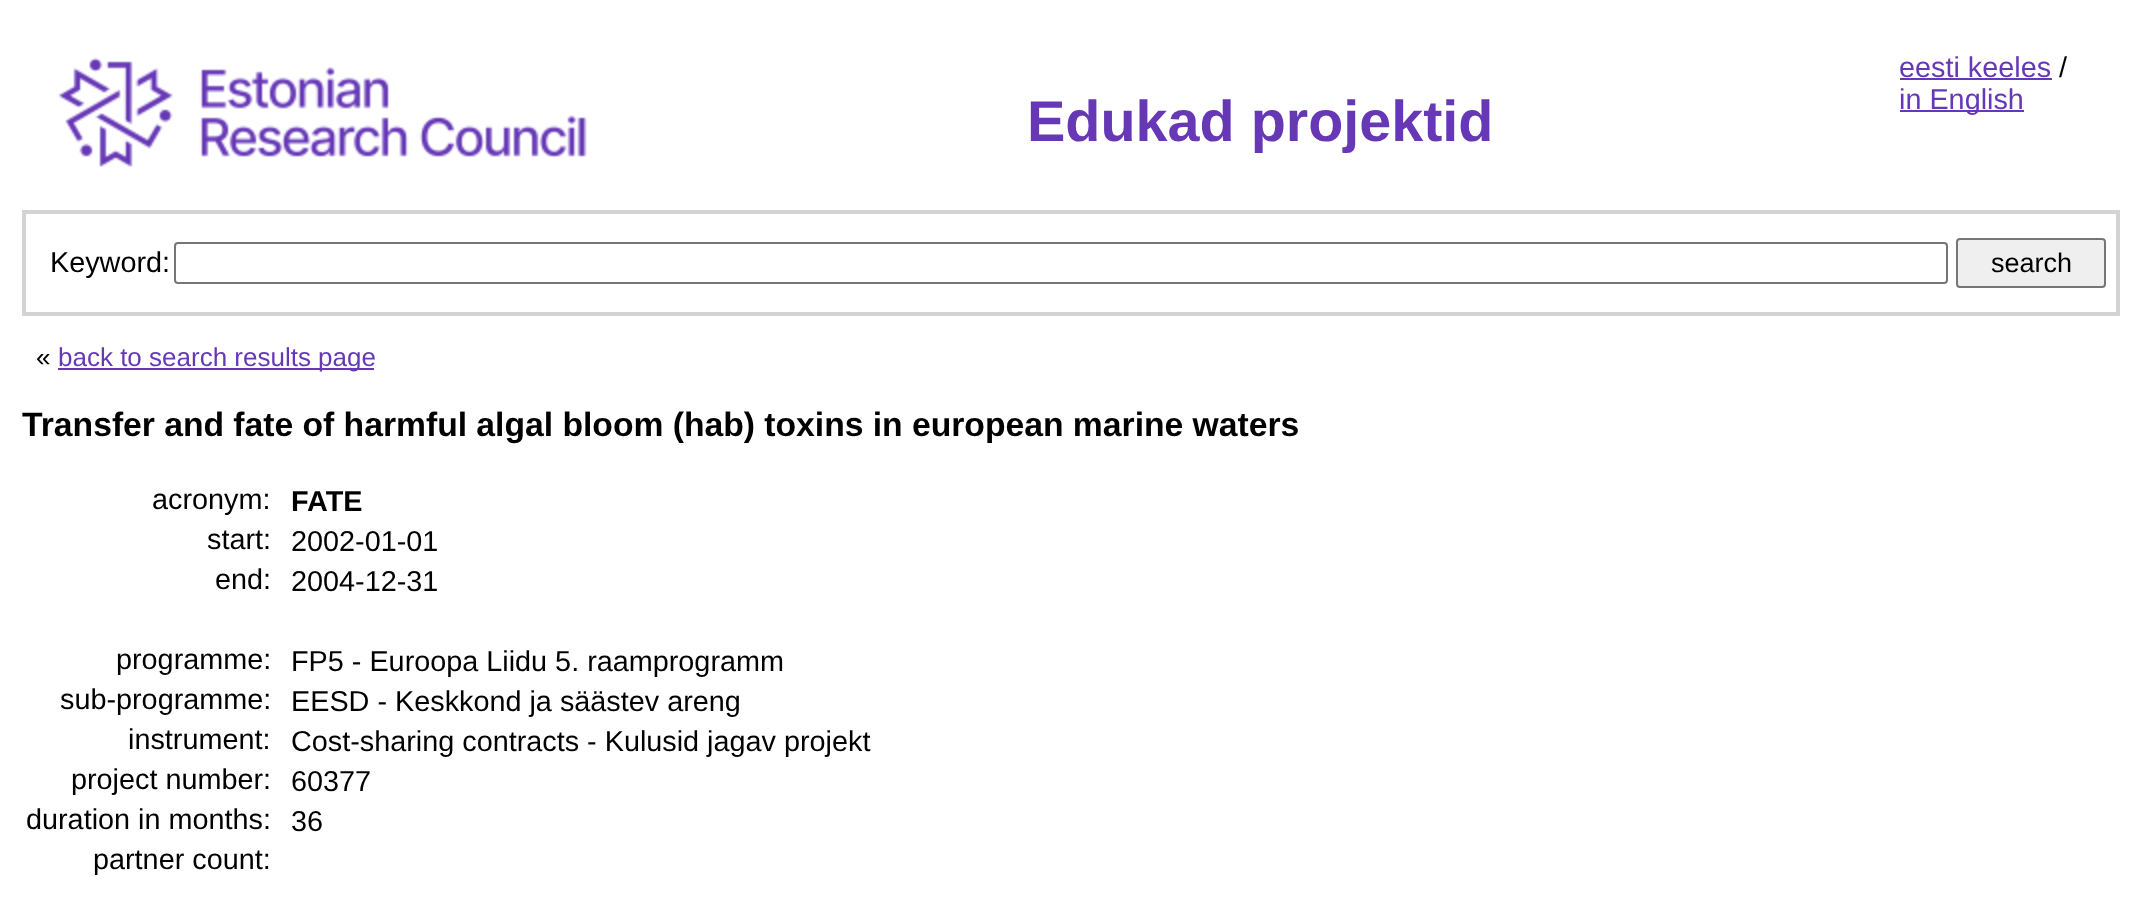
<svg xmlns="http://www.w3.org/2000/svg" width="2134" height="913">
<rect width="100%" height="100%" fill="#fff"/>
<image x="58" y="57" width="529" height="110" href="media/1.png"/>
<text x="1027" y="141" style="font-family:Liberation Sans;font-size:57.5px;font-weight:bold;fill:#6638b6">Edukad projektid</text>
<text x="1899" y="77" style="font-family:Liberation Sans;font-size:28.8px;fill:#6638b6">eesti keeles</text>
<rect x="1900" y="78" width="152" height="2" fill="#6638b6"/>
<text x="2059" y="77" style="font-family:Liberation Sans;font-size:28.8px;fill:#000">/</text>
<rect x="1900" y="110" width="124" height="2" fill="#6638b6"/>
<text x="1899" y="109" style="font-family:Liberation Sans;font-size:28.8px;fill:#6638b6">in English</text>
<rect x="24" y="212" width="2094" height="102" fill="none" stroke="#d3d3d3" stroke-width="4"/>
<text x="50" y="272" style="font-family:Liberation Sans;font-size:28.8px;fill:#000">Keyword:</text>
<rect x="175" y="243" width="1772" height="40" rx="3" fill="none" stroke="#767676" stroke-width="2"/>
<rect x="1957" y="239" width="148" height="48" rx="3" fill="#efefef" stroke="#767676" stroke-width="2"/>
<text x="1991" y="272" style="font-family:Liberation Sans;font-size:27px;fill:#000">search</text>
<text x="36" y="366" style="font-family:Liberation Sans;font-size:26px;fill:#000">«</text>
<rect x="58" y="368" width="316" height="2" fill="#6638b6"/>
<text x="58" y="366" style="font-family:Liberation Sans;font-size:26px;fill:#6638b6">back to search results page</text>
<text x="22" y="436" word-spacing="-0.1" style="font-family:Liberation Sans;font-size:33.7px;font-weight:bold;fill:#000">Transfer and fate of harmful algal bloom (hab) toxins in european marine waters</text>
<text x="152" y="509" style="font-family:Liberation Sans;font-size:28.8px;fill:#000">acronym:</text>
<text x="291" y="511" style="font-family:Liberation Sans;font-size:28.8px;font-weight:bold;fill:#000">FATE</text>
<text x="207" y="549" style="font-family:Liberation Sans;font-size:28.8px;fill:#000">start:</text>
<text x="291" y="551" style="font-family:Liberation Sans;font-size:28.8px;fill:#000">2002-01-01</text>
<text x="215" y="589" style="font-family:Liberation Sans;font-size:28.8px;fill:#000">end:</text>
<text x="291" y="591" style="font-family:Liberation Sans;font-size:28.8px;fill:#000">2004-12-31</text>
<text x="116" y="669" style="font-family:Liberation Sans;font-size:28.8px;fill:#000">programme:</text>
<text x="291" y="671" style="font-family:Liberation Sans;font-size:28.8px;fill:#000">FP5 - Euroopa Liidu 5. raamprogramm</text>
<text x="60" y="709" style="font-family:Liberation Sans;font-size:28.8px;fill:#000">sub-programme:</text>
<text x="291" y="711" style="font-family:Liberation Sans;font-size:28.8px;fill:#000">EESD - Keskkond ja säästev areng</text>
<text x="128" y="749" style="font-family:Liberation Sans;font-size:28.8px;fill:#000">instrument:</text>
<text x="291" y="751" style="font-family:Liberation Sans;font-size:28.8px;fill:#000">Cost-sharing contracts - Kulusid jagav projekt</text>
<text x="71" y="789" style="font-family:Liberation Sans;font-size:28.8px;fill:#000">project number:</text>
<text x="291" y="791" style="font-family:Liberation Sans;font-size:28.8px;fill:#000">60377</text>
<text x="26" y="829" style="font-family:Liberation Sans;font-size:28.8px;fill:#000">duration in months:</text>
<text x="291" y="831" style="font-family:Liberation Sans;font-size:28.8px;fill:#000">36</text>
<text x="93" y="869" style="font-family:Liberation Sans;font-size:28.8px;fill:#000">partner count:</text>
</svg>
